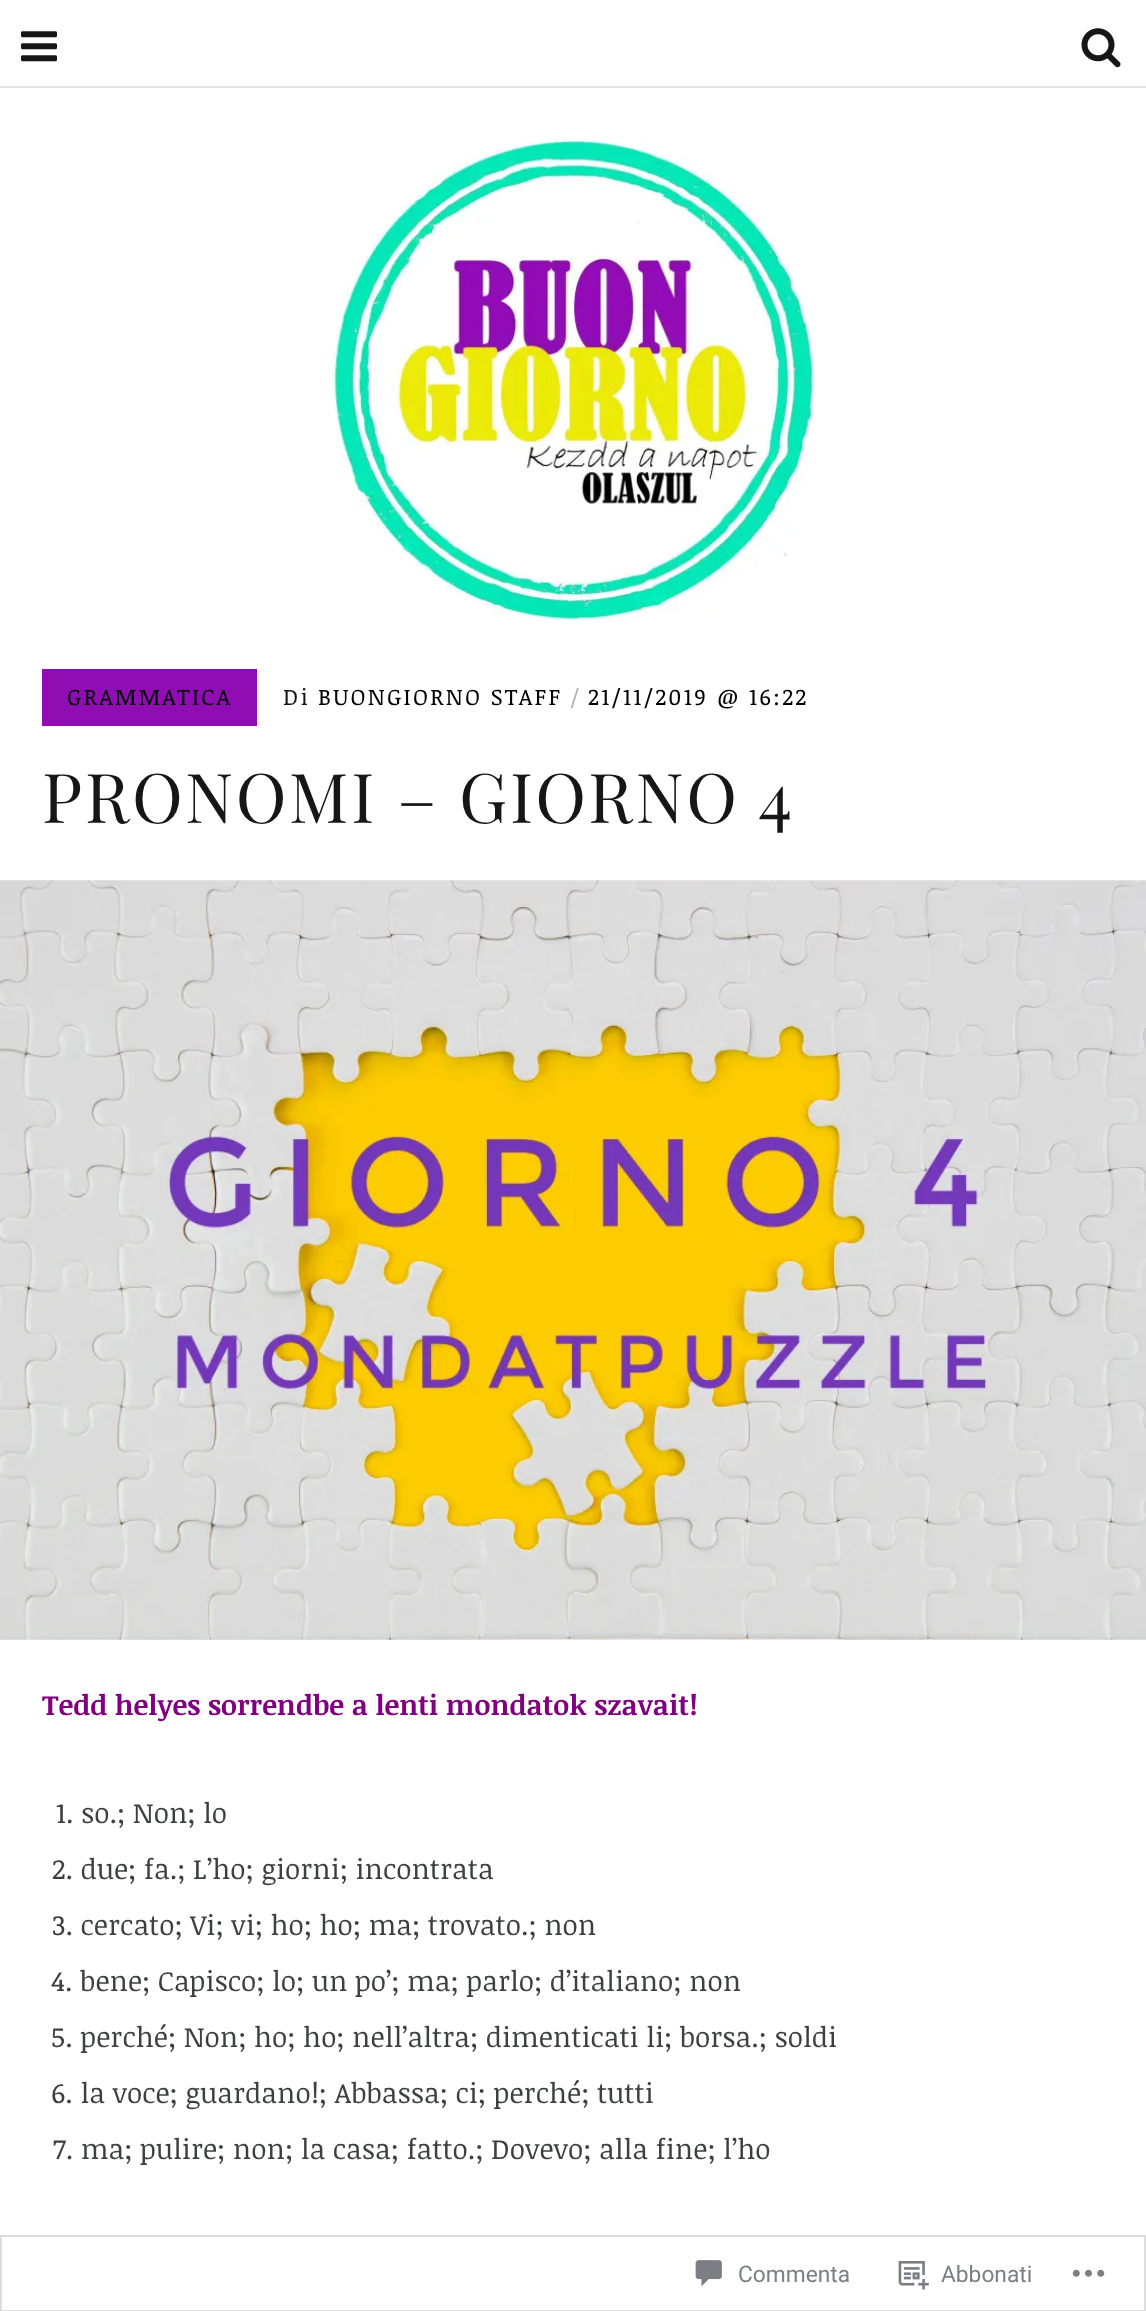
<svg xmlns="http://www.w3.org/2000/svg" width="1146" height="2311">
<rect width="100%" height="100%" fill="#fff"/>
<rect y="86" width="1146" height="2" fill="#e2e3e3"/>
<image x="21" y="31" width="36" height="31" href="media/1.png"/>
<image x="1081" y="28" width="40" height="40" href="media/2.png"/>
<image x="328" y="134" width="488" height="488" href="media/3.png"/>
<rect x="42" y="669" width="215" height="57" fill="#900db3"/>
<text x="67" y="705" style="font-family:Noticia Text;font-size:22.75px;letter-spacing:2.25px;fill:#000">GRAMMATICA</text>
<text x="283" y="705" style="font-family:Noticia Text;font-size:22.75px;letter-spacing:2.25px;fill:#171617">Di</text>
<text x="318" y="705" style="font-family:Noticia Text;font-size:22.75px;letter-spacing:2.25px;fill:#000">BUONGIORNO STAFF</text>
<text x="570" y="705" style="font-family:Noticia Text;font-size:22.75px;letter-spacing:2.25px;fill:#b5b5b5">/</text>
<text x="588" y="705" style="font-family:Noticia Text;font-size:22.75px;letter-spacing:2.25px;fill:#000">21/11/2019</text>
<text x="717" y="705" style="font-family:Noticia Text;font-size:22.75px;letter-spacing:2.25px;fill:#000">@</text>
<text x="749" y="705" style="font-family:Noticia Text;font-size:22.75px;letter-spacing:2.25px;fill:#000">16:22</text>
<text x="42" y="823" style="font-family:Playfair Display;font-size:68.6px;letter-spacing:2.75px;fill:#171617">PRONOMI – GIORNO 4</text>
<image x="0" y="880" width="1146" height="760" href="media/4.png"/>
<text x="42" y="1715" style="font-family:Noticia Text;font-size:28px;font-weight:bold;fill:#800080">Tedd helyes sorrendbe a lenti mondatok szavait!</text>
<text x="56" y="1823" style="font-family:Noticia Text;font-size:28px;fill:#3e3f40">1. so.; Non; lo</text>
<text x="52" y="1879" style="font-family:Noticia Text;font-size:28px;fill:#3e3f40">2. due; fa.; L’ho; giorni; incontrata</text>
<text x="52" y="1935" style="font-family:Noticia Text;font-size:28px;fill:#3e3f40">3. cercato; Vi; vi; ho; ho; ma; trovato.; non</text>
<text x="51" y="1991" style="font-family:Noticia Text;font-size:28px;fill:#3e3f40">4. bene; Capisco; lo; un po’; ma; parlo; d’italiano; non</text>
<text x="51" y="2047" style="font-family:Noticia Text;font-size:28px;fill:#3e3f40">5. perché; Non; ho; ho; nell’altra; dimenticati li; borsa.; soldi</text>
<text x="51" y="2103" style="font-family:Noticia Text;font-size:28px;fill:#3e3f40">6. la voce; guardano!; Abbassa; ci; perché; tutti</text>
<text x="53" y="2159" style="font-family:Noticia Text;font-size:28px;fill:#3e3f40">7. ma; pulire; non; la casa; fatto.; Dovevo; alla fine; l’ho</text>
<rect x="1" y="2236" width="1144" height="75" fill="none" stroke="#dddddf" stroke-width="2"/>
<image x="695" y="2260" width="27" height="27" href="media/5.png"/>
<text x="738" y="2282" style="font-family:Roboto;font-size:22.75px;fill:#7b7f85">Commenta</text>
<image x="898" y="2261" width="31" height="29" href="media/6.png"/>
<text x="941" y="2282" style="font-family:Roboto;font-size:22.75px;fill:#7b7f85">Abbonati</text>
<image x="1072" y="2269" width="33" height="8" href="media/7.png"/>
</svg>
